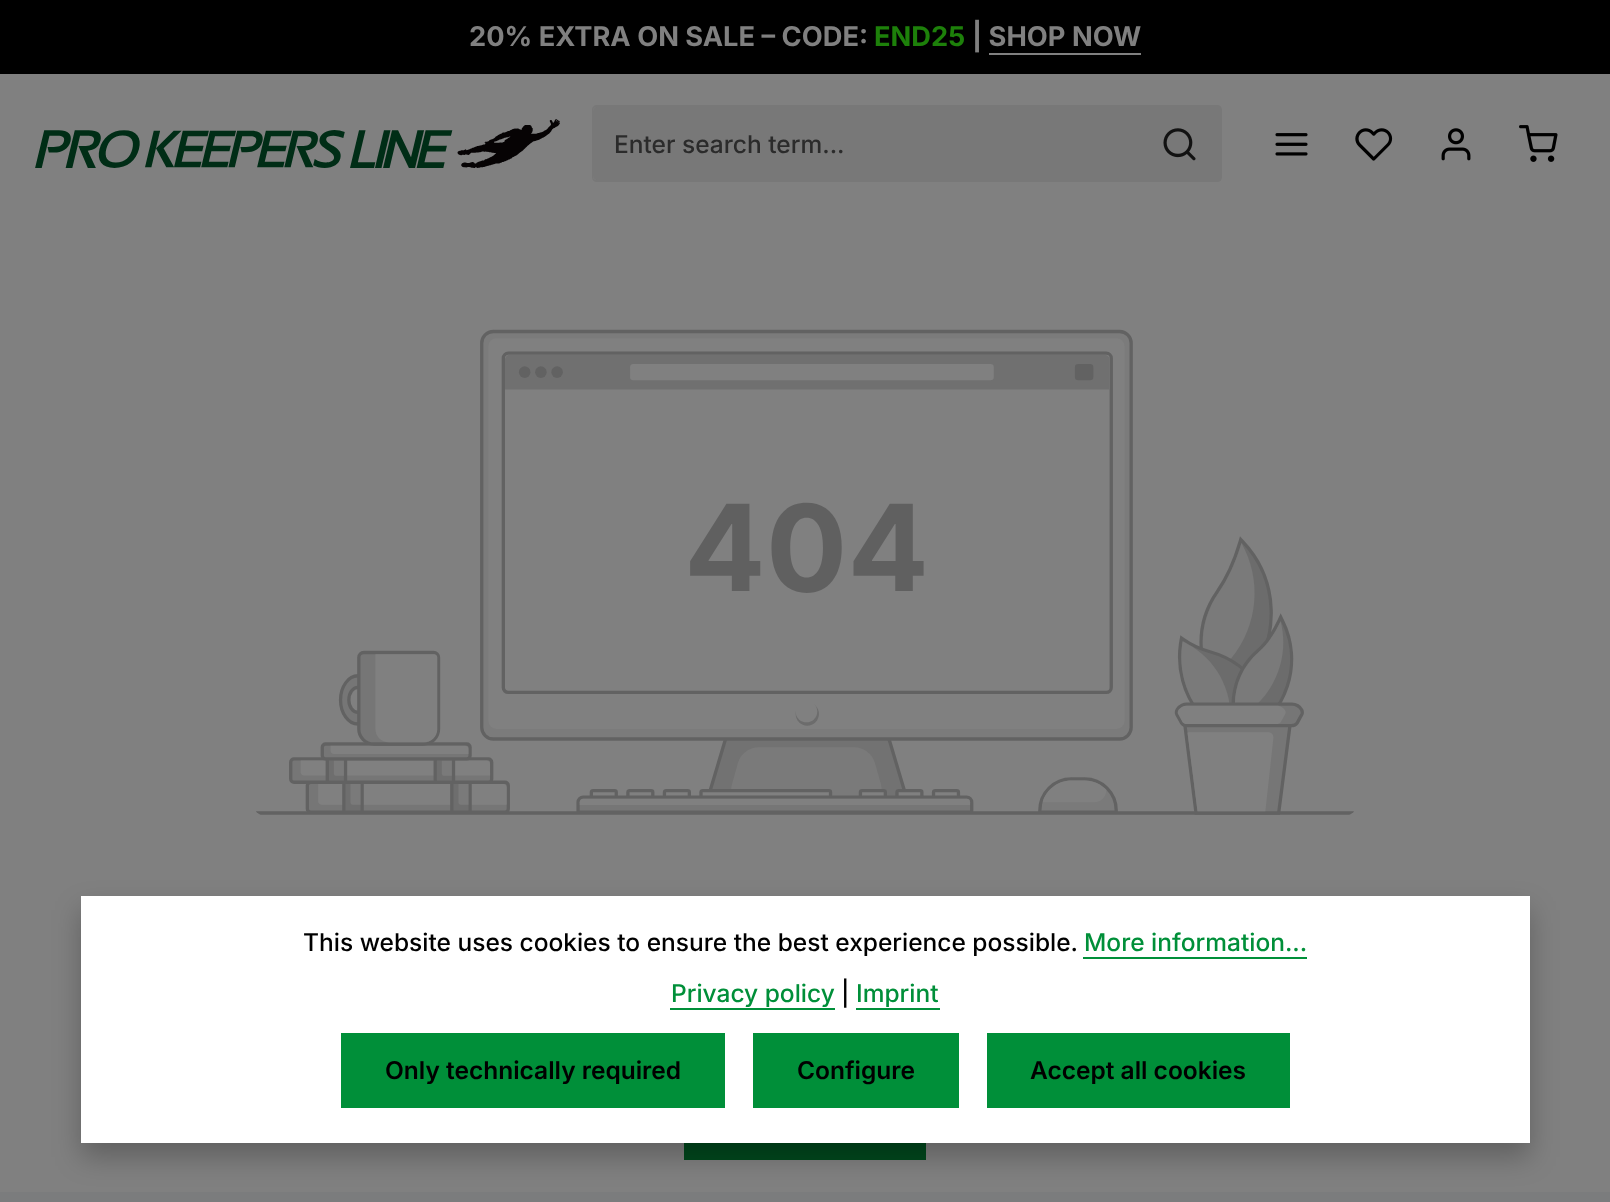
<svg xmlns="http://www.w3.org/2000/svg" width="1610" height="1202">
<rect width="100%" height="100%" fill="#808080"/>
<rect width="1610" height="74" fill="#000"/>
<text x="469" y="46" style="font-family:Inter;font-size:27.25px;font-weight:bold;fill:#808080">20% EXTRA ON SALE – CODE:</text>
<text x="874" y="46" style="font-family:Inter;font-size:27.25px;font-weight:bold;fill:#1d800a">END25</text>
<text x="972" y="46" style="font-family:Inter;font-size:27.25px;font-weight:bold;fill:#808080">| SHOP NOW</text>
<rect x="989" y="53" width="152" height="2" fill="#808080"/>
<image x="35" y="119" width="525" height="49" href="media/1.png"/>
<path d="M597 107h544v73h-544c-2 0-4-2-4-4v-65c0-2 2-4 4-4z" fill="#787878"/>
<path d="M597 105h544v77h-544c-3 0-5-2-5-5v-67c0-3 2-5 5-5zm0 2h544v73h-544c-2 0-4-1-4-3v-67c0-2 2-3 4-3z" fill="#787878" fill-rule="evenodd"/>
<text x="614" y="153" style="font-family:Inter;font-size:24.5px;font-weight:500;fill:#2b2b2b">Enter search term...</text>
<path d="M1139 105h78c3 0 5 2 5 5v67c0 3-2 5-5 5h-78z" fill="#787878"/>
<image x="1163" y="128" width="33" height="33" href="media/2.png"/>
<image x="1275" y="133" width="33" height="23" href="media/3.png"/>
<image x="1355" y="128" width="38" height="33" href="media/4.png"/>
<image x="1441" y="128" width="30" height="33" href="media/5.png"/>
<image x="1519" y="125" width="39" height="37" href="media/6.png"/>
<image x="256" y="329" width="1098" height="486" href="media/7.png"/>
<rect x="684" y="1143" width="242" height="17" fill="#00481d"/>
<rect y="1192" width="1610" height="10" fill="#7b7c7d"/>
<rect x="81" y="910" width="1449" height="247" fill="#00000040" filter="blur(14px)"/>
<rect x="81" y="896" width="1449" height="247" fill="#fff"/>
<text x="303" y="951" style="font-family:Inter;font-size:24.5px;font-weight:500;fill:#000">This website uses cookies to ensure the best experience possible.</text>
<text x="1084" y="951" style="font-family:Inter;font-size:24.5px;font-weight:500;fill:#008f39">More information...</text>
<rect x="1083" y="957" width="224" height="2" fill="#008f39"/>
<text x="671" y="1002" style="font-family:Inter;font-size:24.5px;font-weight:500;fill:#008f39">Privacy policy</text>
<rect x="670" y="1008" width="165" height="2" fill="#008f39"/>
<text x="841" y="1002" style="font-family:Inter;font-size:24.5px;font-weight:500;fill:#000">|</text>
<text x="856" y="1002" style="font-family:Inter;font-size:24.5px;font-weight:500;fill:#008f39">Imprint</text>
<rect x="856" y="1008" width="84" height="2" fill="#008f39"/>
<rect x="341" y="1033" width="384" height="75" fill="#008f39"/>
<text x="385" y="1079" style="font-family:Inter;font-size:24.5px;font-weight:600;fill:#000">Only technically required</text>
<rect x="753" y="1033" width="206" height="75" fill="#008f39"/>
<text x="797" y="1079" style="font-family:Inter;font-size:24.5px;font-weight:600;fill:#000">Configure</text>
<rect x="987" y="1033" width="303" height="75" fill="#008f39"/>
<text x="1030" y="1079" style="font-family:Inter;font-size:24.5px;font-weight:600;fill:#000">Accept all cookies</text>
</svg>
